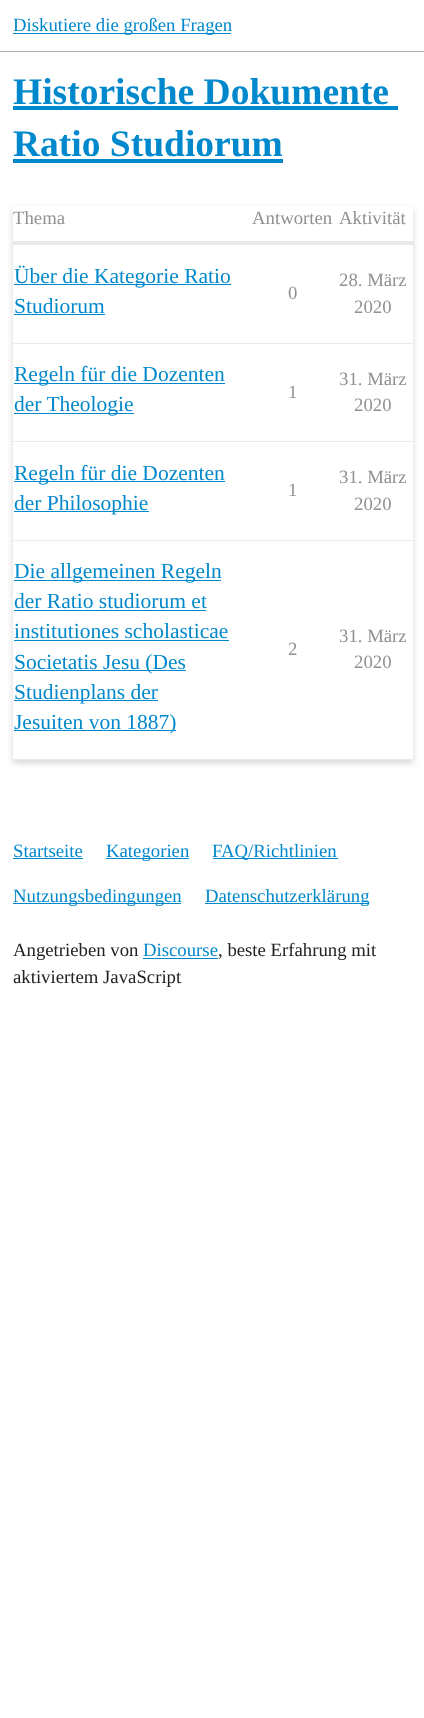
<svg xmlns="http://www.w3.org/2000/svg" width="424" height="1718">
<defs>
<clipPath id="clip1"><path d="M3 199h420v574h-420zm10 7h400v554h-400z" clip-rule="evenodd"/></clipPath>
</defs>
<rect width="100%" height="100%" fill="#fff"/>
<rect y="51" width="424" height="1" fill="#afafaf"/>
<rect x="13" y="33" width="218" height="1" fill="#08c"/>
<text x="13" y="31" style="font-family:Liberation Serif;font-size:18.75px;fill:#08c">Diskutiere die großen Fragen</text>
<text x="13" y="104" style="font-family:Liberation Serif;font-size:37.5px;font-weight:bold;fill:#08c">Historische Dokumente</text>
<rect x="13" y="106" width="385" height="4" fill="#08c"/>
<text x="13" y="156" style="font-family:Liberation Serif;font-size:37.5px;font-weight:bold;fill:#08c">Ratio Studiorum</text>
<rect x="13" y="159" width="270" height="4" fill="#08c"/>
<g clip-path="url(#clip1)">
<rect x="13" y="209" width="400" height="554" fill="#00000029" filter="blur(3px)"/>
</g>
<text x="13" y="224" style="font-family:Liberation Serif;font-size:18.75px;fill:#919191">Thema</text>
<text x="252" y="224" style="font-family:Liberation Serif;font-size:18.75px;fill:#919191">Antworten</text>
<text x="339" y="224" style="font-family:Liberation Serif;font-size:18.75px;fill:#919191">Aktivität</text>
<rect x="13" y="241" width="400" height="4" fill="#e9e9e9"/>
<rect x="13" y="343" width="400" height="1" fill="#e9e9e9"/>
<rect x="14" y="284" width="217" height="1" fill="#08c"/>
<text x="14" y="283" style="font-family:Liberation Serif;font-size:21.5px;fill:#08c">Über die Kategorie Ratio</text>
<text x="14" y="313" style="font-family:Liberation Serif;font-size:21.5px;fill:#08c">Studiorum</text>
<rect x="14" y="314" width="91" height="1" fill="#08c"/>
<text x="288" y="299" style="font-family:Liberation Serif;font-size:18.75px;fill:#919191">0</text>
<text x="339" y="286" style="font-family:Liberation Serif;font-size:18.75px;fill:#919191">28. März</text>
<text x="354" y="313" style="font-family:Liberation Serif;font-size:18.75px;fill:#919191">2020</text>
<rect x="13" y="441" width="400" height="1" fill="#e9e9e9"/>
<rect x="14" y="383" width="211" height="1" fill="#08c"/>
<text x="14" y="381" style="font-family:Liberation Serif;font-size:21.5px;fill:#08c">Regeln für die Dozenten</text>
<rect x="14" y="413" width="120" height="1" fill="#08c"/>
<text x="14" y="411" style="font-family:Liberation Serif;font-size:21.5px;fill:#08c">der Theologie</text>
<text x="288" y="398" style="font-family:Liberation Serif;font-size:18.75px;fill:#919191">1</text>
<text x="339" y="385" style="font-family:Liberation Serif;font-size:18.75px;fill:#919191">31. März</text>
<text x="354" y="411" style="font-family:Liberation Serif;font-size:18.75px;fill:#919191">2020</text>
<rect x="13" y="540" width="400" height="1" fill="#e9e9e9"/>
<rect x="14" y="481" width="211" height="1" fill="#08c"/>
<text x="14" y="480" style="font-family:Liberation Serif;font-size:21.5px;fill:#08c">Regeln für die Dozenten</text>
<rect x="14" y="511" width="135" height="1" fill="#08c"/>
<text x="14" y="510" style="font-family:Liberation Serif;font-size:21.5px;fill:#08c">der Philosophie</text>
<text x="288" y="496" style="font-family:Liberation Serif;font-size:18.75px;fill:#919191">1</text>
<text x="339" y="483" style="font-family:Liberation Serif;font-size:18.75px;fill:#919191">31. März</text>
<text x="354" y="510" style="font-family:Liberation Serif;font-size:18.75px;fill:#919191">2020</text>
<rect x="13" y="759" width="400" height="1" fill="#e9e9e9"/>
<rect x="14" y="580" width="207" height="1" fill="#08c"/>
<text x="14" y="578" style="font-family:Liberation Serif;font-size:21.5px;fill:#08c">Die allgemeinen Regeln</text>
<text x="14" y="608" style="font-family:Liberation Serif;font-size:21.5px;fill:#08c">der Ratio studiorum et</text>
<rect x="14" y="610" width="192" height="1" fill="#08c"/>
<text x="14" y="638" style="font-family:Liberation Serif;font-size:21.5px;fill:#08c">institutiones scholasticae</text>
<rect x="14" y="640" width="215" height="1" fill="#08c"/>
<rect x="14" y="670" width="172" height="1" fill="#08c"/>
<text x="14" y="669" style="font-family:Liberation Serif;font-size:21.5px;fill:#08c">Societatis Jesu (Des</text>
<rect x="14" y="700" width="144" height="1" fill="#08c"/>
<text x="14" y="699" style="font-family:Liberation Serif;font-size:21.5px;fill:#08c">Studienplans der</text>
<rect x="14" y="730" width="162" height="1" fill="#08c"/>
<text x="14" y="729" style="font-family:Liberation Serif;font-size:21.5px;fill:#08c">Jesuiten von 1887)</text>
<text x="288" y="655" style="font-family:Liberation Serif;font-size:18.75px;fill:#919191">2</text>
<text x="339" y="642" style="font-family:Liberation Serif;font-size:18.75px;fill:#919191">31. März</text>
<text x="354" y="668" style="font-family:Liberation Serif;font-size:18.75px;fill:#919191">2020</text>
<text x="13" y="857" style="font-family:Liberation Serif;font-size:18.75px;fill:#08c">Startseite</text>
<rect x="13" y="858" width="70" height="1" fill="#08c"/>
<rect x="106" y="858" width="83" height="1" fill="#08c"/>
<text x="106" y="857" style="font-family:Liberation Serif;font-size:18.75px;fill:#08c">Kategorien</text>
<rect x="213" y="858" width="125" height="1" fill="#08c"/>
<text x="212" y="857" style="font-family:Liberation Serif;font-size:18.75px;fill:#08c">FAQ/Richtlinien</text>
<rect x="13" y="903" width="168" height="1" fill="#08c"/>
<text x="13" y="902" style="font-family:Liberation Serif;font-size:18.75px;fill:#08c">Nutzungsbedingungen</text>
<rect x="205" y="903" width="164" height="1" fill="#08c"/>
<text x="205" y="902" style="font-family:Liberation Serif;font-size:18.75px;fill:#08c">Datenschutzerklärung</text>
<text x="13" y="956" style="font-family:Liberation Serif;font-size:18.75px;fill:#222">Angetrieben von</text>
<text x="143" y="956" style="font-family:Liberation Serif;font-size:18.75px;fill:#08c">Discourse</text>
<rect x="143" y="958" width="75" height="1" fill="#08c"/>
<text x="218" y="956" style="font-family:Liberation Serif;font-size:18.75px;fill:#222">, beste Erfahrung mit</text>
<text x="13" y="983" style="font-family:Liberation Serif;font-size:18.75px;fill:#222">aktiviertem JavaScript</text>
</svg>
